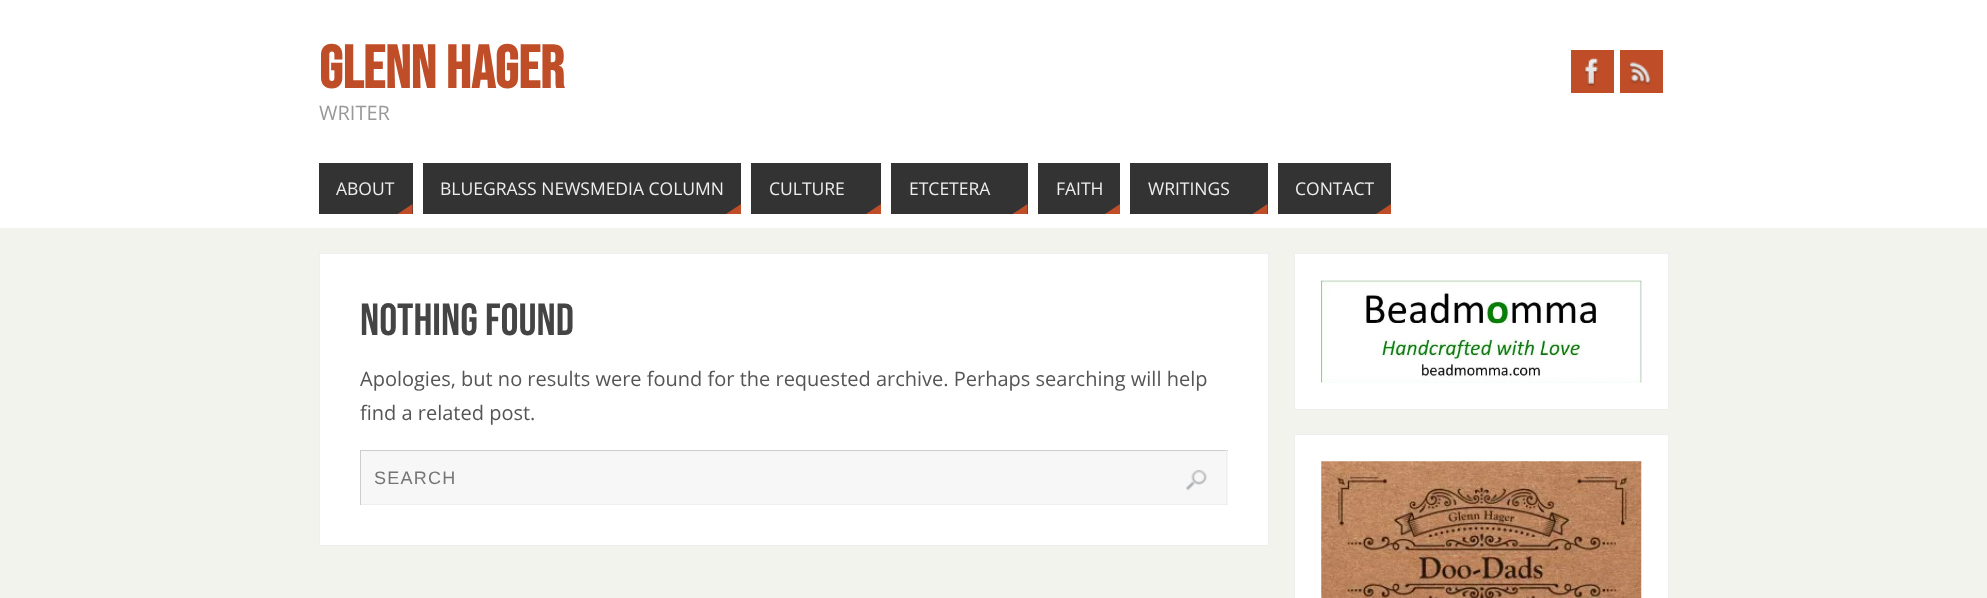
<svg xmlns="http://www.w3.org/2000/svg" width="1987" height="598">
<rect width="100%" height="100%" fill="#f3f3ee"/>
<rect width="1987" height="228" fill="#fff"/>
<text x="319" y="88" style="font-family:Bebas Neue;font-size:60px;font-weight:bold;fill:#bf4d28">GLENN HAGER</text>
<text x="319" y="120" style="font-family:Open Sans;font-size:20px;fill:#999">WRITER</text>
<rect x="1571" y="50" width="43" height="43" fill="#bf4d28"/>
<image x="1584" y="58" width="15" height="28" href="media/1.png"/>
<rect x="1620" y="50" width="43" height="43" fill="#bf4d28"/>
<image x="1629" y="62" width="22" height="23" href="media/2.png"/>
<rect x="319" y="163" width="94" height="51" fill="#333"/>
<text x="336" y="195" style="font-family:Open Sans;font-size:17.5px;fill:#eee">ABOUT</text>
<path d="M412.5 214h-15l15-10z" fill="#bf4d28"/>
<rect x="423" y="163" width="318" height="51" fill="#333"/>
<text x="440" y="195" style="font-family:Open Sans;font-size:17.5px;fill:#eee">BLUEGRASS NEWSMEDIA COLUMN</text>
<path d="M741 214h-15l15-10z" fill="#bf4d28"/>
<rect x="751" y="163" width="130" height="51" fill="#333"/>
<text x="769" y="195" style="font-family:Open Sans;font-size:17.5px;fill:#eee">CULTURE</text>
<path d="M881 214h-15l15-10z" fill="#bf4d28"/>
<rect x="891" y="163" width="137" height="51" fill="#333"/>
<text x="909" y="195" style="font-family:Open Sans;font-size:17.5px;fill:#eee">ETCETERA</text>
<path d="M1027.5 214h-15l15-10z" fill="#bf4d28"/>
<rect x="1038" y="163" width="82" height="51" fill="#333"/>
<text x="1056" y="195" style="font-family:Open Sans;font-size:17.5px;fill:#eee">FAITH</text>
<path d="M1120 214h-15l15-10z" fill="#bf4d28"/>
<rect x="1130" y="163" width="138" height="51" fill="#333"/>
<text x="1148" y="195" style="font-family:Open Sans;font-size:17.5px;fill:#eee">WRITINGS</text>
<path d="M1267.5 214h-15l15-10z" fill="#bf4d28"/>
<rect x="1278" y="163" width="113" height="51" fill="#333"/>
<text x="1295" y="195" style="font-family:Open Sans;font-size:17.5px;fill:#eee">CONTACT</text>
<path d="M1391 214h-15l15-10z" fill="#bf4d28"/>
<rect x="319.5" y="253.5" width="949" height="292" fill="#fff" stroke="#eee"/>
<text x="360" y="335" style="font-family:Bebas Neue;font-size:45px;fill:#444">Nothing Found</text>
<text x="360" y="386" style="font-family:Open Sans;font-size:20px;fill:#555">Apologies, but no results were found for the requested archive. Perhaps searching will help</text>
<text x="360" y="420" style="font-family:Open Sans;font-size:20px;fill:#555">find a related post.</text>
<rect x="361" y="451" width="867" height="53" fill="#f7f7f7"/>
<rect x="360" y="450" width="868" height="1" fill="#ccc"/>
<rect x="1226" y="450" width="1" height="55" fill="#eee"/>
<rect x="360" y="504" width="868" height="1" fill="#eee"/>
<rect x="360" y="450" width="1" height="55" fill="#ccc"/>
<text x="374" y="484" style="font-family:Liberation Sans;font-size:18px;letter-spacing:1.25px;fill:#757575">SEARCH</text>
<image x="1186" y="470" width="21" height="21" href="media/3.png"/>
<rect x="1294.5" y="253.5" width="374" height="156" fill="#fff" stroke="#eee"/>
<image x="1321" y="280" width="321" height="103" href="media/4.png"/>
<rect x="1294.5" y="434.5" width="374" height="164" fill="#fff" stroke="#eee"/>
<image x="1321" y="461" width="321" height="137" href="media/5.png"/>
</svg>
